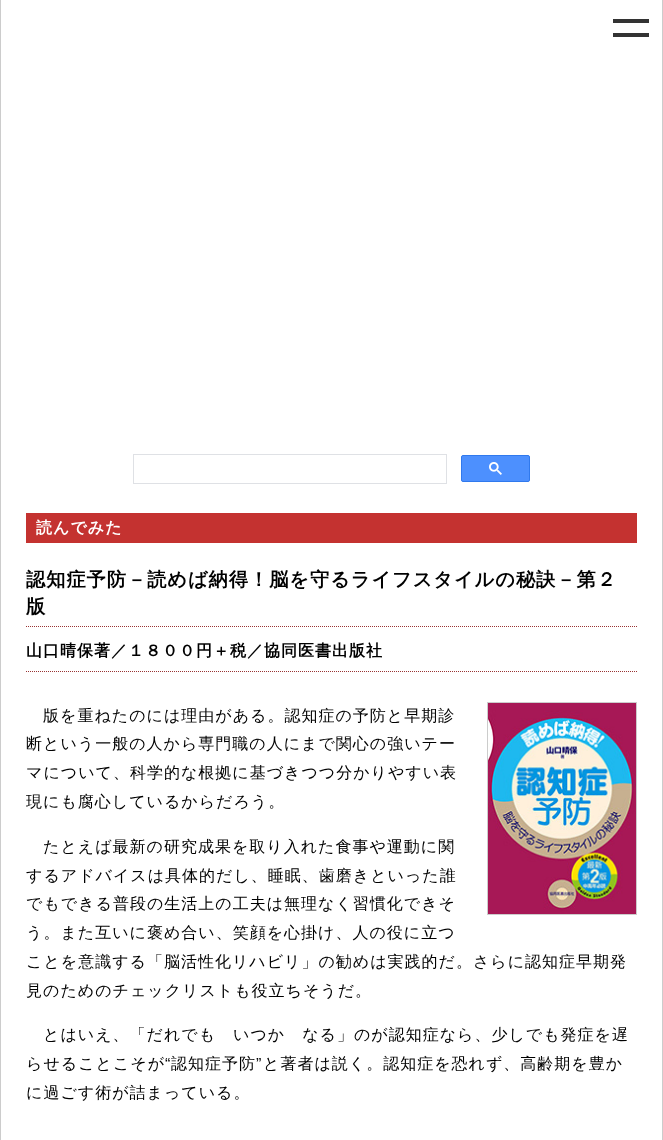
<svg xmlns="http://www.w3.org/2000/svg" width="663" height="1140">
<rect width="100%" height="100%" fill="#fff"/>
<rect x="662" width="1" height="1140" fill="#ccc"/>
<rect width="1" height="1140" fill="#ccc"/>
<rect x="613" y="19" width="36" height="4" fill="#333"/>
<rect x="613" y="33" width="36" height="4" fill="#333"/>
<rect x="133.5" y="454.5" width="313" height="29" fill="none" stroke="#dfe1e5"/>
<rect x="461.5" y="455.5" width="68" height="26" rx="1.5" fill="#4d90fe" stroke="#3079ed"/>
<image x="489" y="462" width="13" height="13" href="media/1.png"/>
<rect x="26" y="513" width="611" height="30" fill="#c43230"/>
<text x="36" y="533" style="font-family:WenQuanYi Zen Hei;font-size:16px;font-weight:bold;letter-spacing:1px;fill:#fff">読んでみた</text>
<path d="M26 626.5h611" fill="none" stroke="#933" stroke-dasharray="1 1"/>
<text x="26" y="586" style="font-family:WenQuanYi Zen Hei;font-size:19.2px;font-weight:bold;letter-spacing:1px;fill:#000">認知症予防－読めば納得！脳を守るライフスタイルの秘訣－第２</text>
<text x="26" y="613" style="font-family:WenQuanYi Zen Hei;font-size:19.2px;font-weight:bold;letter-spacing:1px;fill:#000">版</text>
<path d="M26 671.5h611" fill="none" stroke="#933" stroke-dasharray="1 1"/>
<text x="26" y="656" style="font-family:WenQuanYi Zen Hei;font-size:16px;font-weight:bold;letter-spacing:1px;fill:#000">山口晴保著／１８００円＋税／協同医書出版社</text>
<text x="43" y="721" style="font-family:WenQuanYi Zen Hei;font-size:16px;font-weight:500;letter-spacing:1px;fill:#000">版を重ねたのには理由がある。認知症の予防と早期診</text>
<text x="26" y="749" style="font-family:WenQuanYi Zen Hei;font-size:16px;font-weight:500;letter-spacing:1px;fill:#000">断という一般の人から専門職の人にまで関心の強いテー</text>
<text x="26" y="778" style="font-family:WenQuanYi Zen Hei;font-size:16px;font-weight:500;letter-spacing:1px;fill:#000">マについて、科学的な根拠に基づきつつ分かりやすい表</text>
<text x="26" y="807" style="font-family:WenQuanYi Zen Hei;font-size:16px;font-weight:500;letter-spacing:1px;fill:#000">現にも腐心しているからだろう。</text>
<rect x="487.5" y="702.5" width="149" height="212" fill="none" stroke="#ccc"/>
<image x="488" y="703" width="148" height="211" href="media/2.png"/>
<text x="43" y="852" style="font-family:WenQuanYi Zen Hei;font-size:16px;font-weight:500;letter-spacing:1px;fill:#000">たとえば最新の研究成果を取り入れた食事や運動に関</text>
<text x="26" y="881" style="font-family:WenQuanYi Zen Hei;font-size:16px;font-weight:500;letter-spacing:1px;fill:#000">するアドバイスは具体的だし、睡眠、歯磨きといった誰</text>
<text x="26" y="909" style="font-family:WenQuanYi Zen Hei;font-size:16px;font-weight:500;letter-spacing:1px;fill:#000">でもできる普段の生活上の工夫は無理なく習慣化できそ</text>
<text x="26" y="938" style="font-family:WenQuanYi Zen Hei;font-size:16px;font-weight:500;letter-spacing:1px;fill:#000">う。また互いに褒め合い、笑顔を心掛け、人の役に立つ</text>
<text x="26" y="967" style="font-family:WenQuanYi Zen Hei;font-size:16px;font-weight:500;letter-spacing:1px;fill:#000">ことを意識する「脳活性化リハビリ」の勧めは実践的だ。さらに認知症早期発</text>
<text x="26" y="996" style="font-family:WenQuanYi Zen Hei;font-size:16px;font-weight:500;letter-spacing:1px;fill:#000">見のためのチェックリストも役立ちそうだ。</text>
<text x="43" y="1040" style="font-family:WenQuanYi Zen Hei;font-size:16px;font-weight:500;letter-spacing:1px;fill:#000">とはいえ、「だれでも　いつか　なる」のが認知症なら、少しでも発症を遅</text>
<text x="26" y="1069" style="font-family:WenQuanYi Zen Hei;font-size:16px;font-weight:500;letter-spacing:1px;fill:#000">らせることこそが</text>
<text x="165" y="1069" style="font-family:Liberation Sans;font-size:16px;letter-spacing:1px;fill:#000">“</text>
<text x="171" y="1069" style="font-family:WenQuanYi Zen Hei;font-size:16px;font-weight:500;letter-spacing:1px;fill:#000">認知症予防</text>
<text x="256" y="1069" style="font-family:Liberation Sans;font-size:16px;letter-spacing:1px;fill:#000">”</text>
<text x="263" y="1069" style="font-family:WenQuanYi Zen Hei;font-size:16px;font-weight:500;letter-spacing:1px;fill:#000">と著者は説く。認知症を恐れず、高齢期を豊か</text>
<text x="26" y="1098" style="font-family:WenQuanYi Zen Hei;font-size:16px;font-weight:500;letter-spacing:1px;fill:#000">に過ごす術が詰まっている。</text>
</svg>
